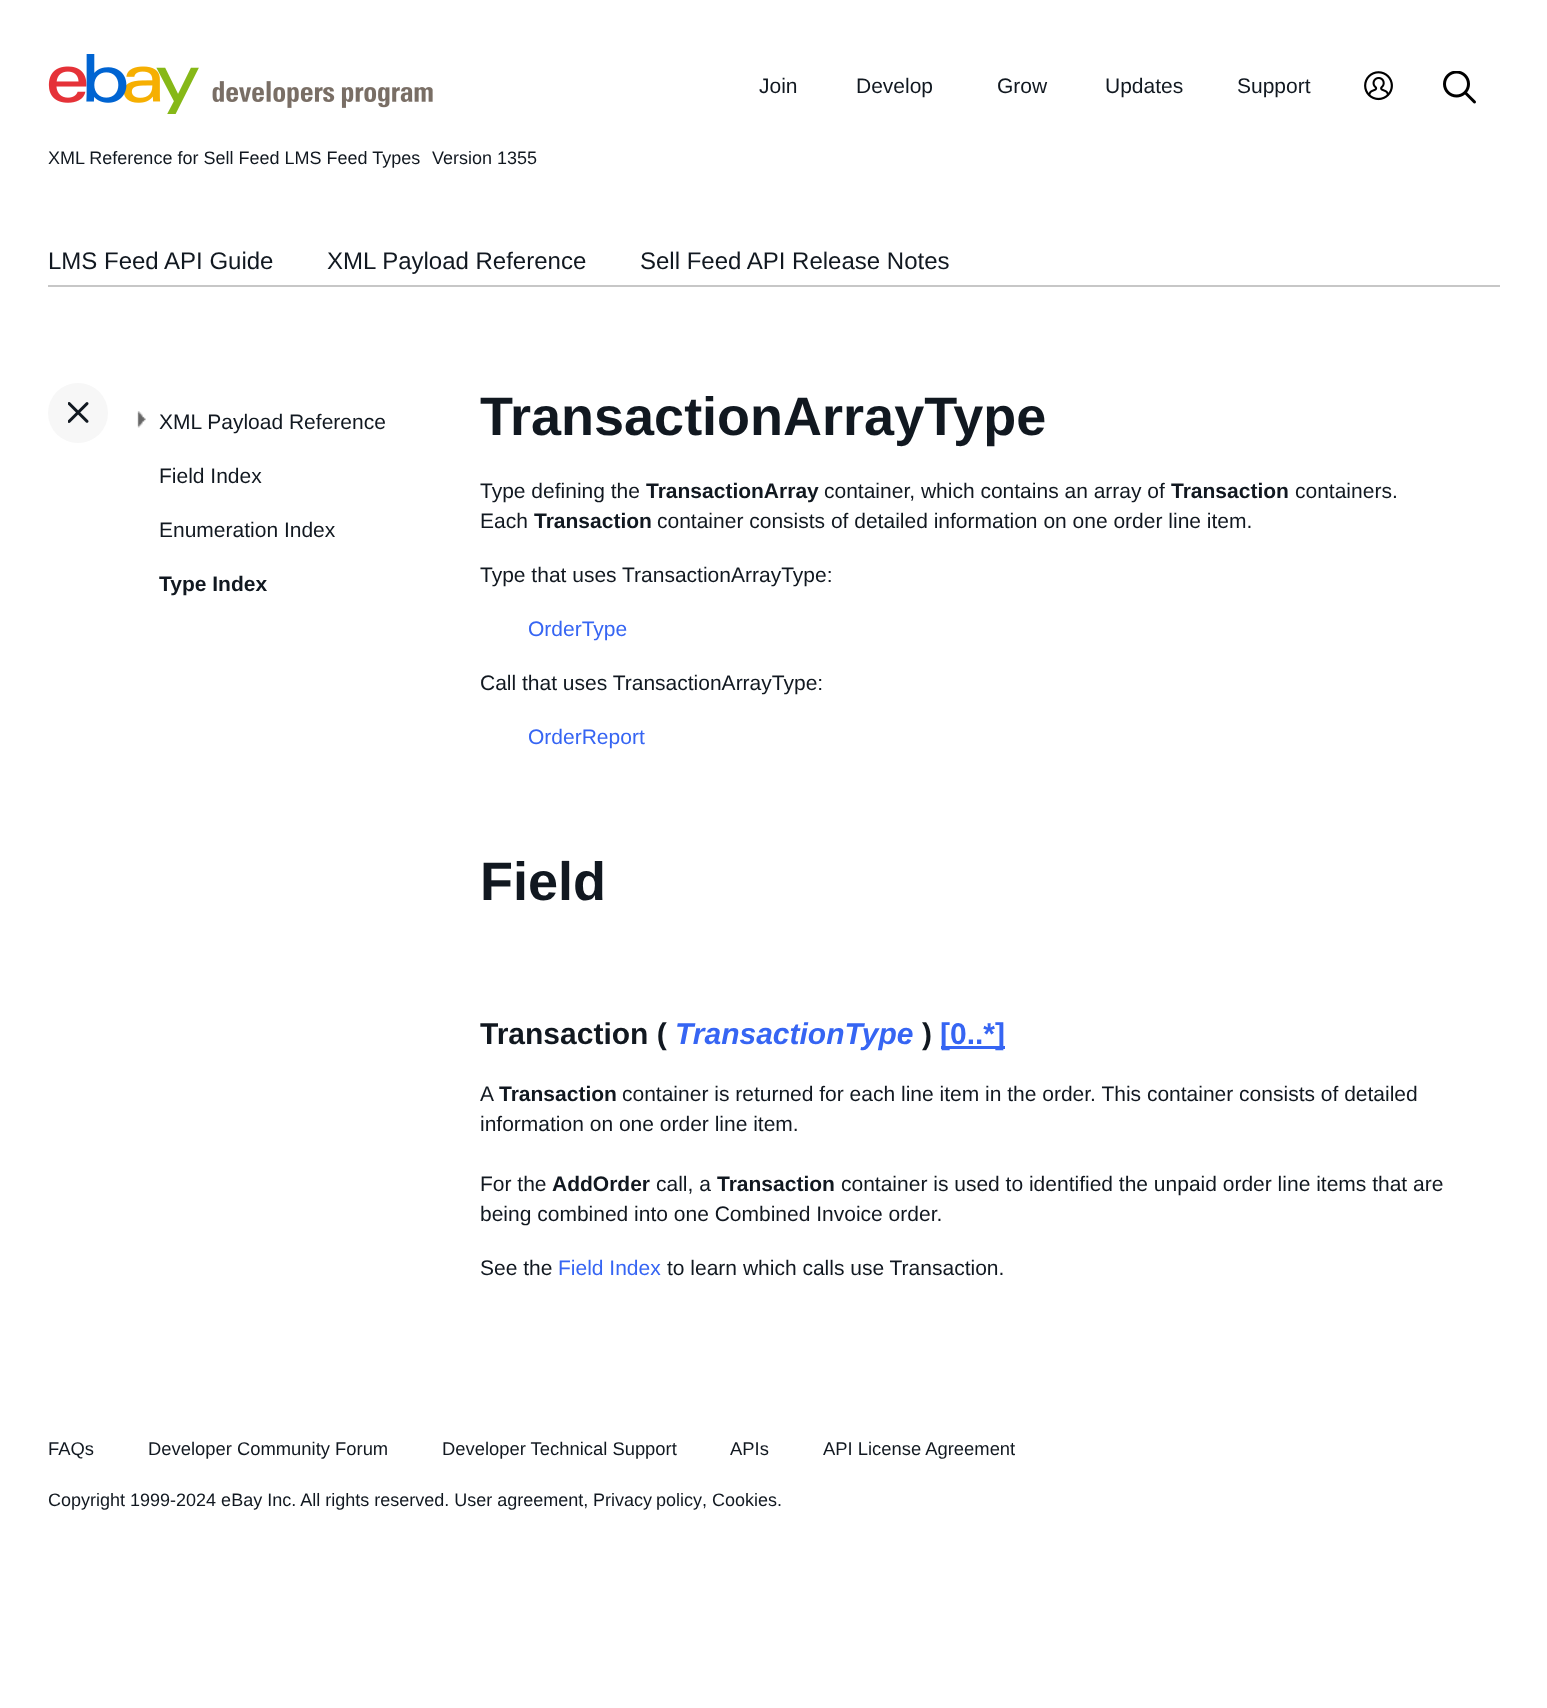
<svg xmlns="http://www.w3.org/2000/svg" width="1547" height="1708">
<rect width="100%" height="100%" fill="#fff"/>
<image x="48" y="54" width="385" height="60" href="media/1.png"/>
<text x="759" y="93" style="font-family:Liberation Sans;font-size:21px;fill:#111820">Join</text>
<text x="856" y="93" style="font-family:Liberation Sans;font-size:21px;fill:#111820">Develop</text>
<text x="997" y="93" style="font-family:Liberation Sans;font-size:21px;fill:#111820">Grow</text>
<text x="1105" y="93" style="font-family:Liberation Sans;font-size:21px;fill:#111820">Updates</text>
<text x="1237" y="93" style="font-family:Liberation Sans;font-size:21px;fill:#111820">Support</text>
<image x="1364" y="71" width="29" height="30" href="media/2.png"/>
<image x="1443" y="71" width="33" height="33" href="media/3.png"/>
<text x="48" y="164" style="font-family:Liberation Sans;font-size:18px;fill:#111820">XML Reference for Sell Feed LMS Feed Types</text>
<text x="432" y="164" style="font-family:Liberation Sans;font-size:18px;fill:#111820">Version 1355</text>
<rect x="48" y="285" width="1452" height="2" fill="#c7c7c7"/>
<text x="48" y="269" style="font-family:Liberation Sans;font-size:24px;fill:#111820">LMS Feed API Guide</text>
<text x="327" y="269" style="font-family:Liberation Sans;font-size:24px;fill:#111820">XML Payload Reference</text>
<text x="640" y="269" style="font-family:Liberation Sans;font-size:24px;fill:#111820">Sell Feed API Release Notes</text>
<circle cx="78" cy="413" r="30" fill="#f7f7f7"/>
<image x="68" y="402" width="21" height="21" href="media/4.png"/>
<image x="137" y="411" width="9" height="17" href="media/5.png"/>
<text x="159" y="429" style="font-family:Liberation Sans;font-size:21px;fill:#111820">XML Payload Reference</text>
<text x="159" y="483" style="font-family:Liberation Sans;font-size:21px;fill:#111820">Field Index</text>
<text x="159" y="537" style="font-family:Liberation Sans;font-size:21px;fill:#111820">Enumeration Index</text>
<text x="159" y="591" style="font-family:Liberation Sans;font-size:21px;font-weight:bold;fill:#111820">Type Index</text>
<text x="480" y="435" style="font-family:Liberation Sans;font-size:54px;font-weight:bold;fill:#111820">TransactionArrayType</text>
<text x="480" y="498" style="font-family:Liberation Sans;font-size:21px;fill:#111820">Type defining the</text>
<text x="646" y="498" style="font-family:Liberation Sans;font-size:21px;font-weight:bold;fill:#111820">TransactionArray</text>
<text x="824" y="498" style="font-family:Liberation Sans;font-size:21px;fill:#111820">container, which contains an array of</text>
<text x="1171" y="498" style="font-family:Liberation Sans;font-size:21px;font-weight:bold;fill:#111820">Transaction</text>
<text x="1295" y="498" style="font-family:Liberation Sans;font-size:21px;fill:#111820">containers.</text>
<text x="480" y="528" style="font-family:Liberation Sans;font-size:21px;fill:#111820">Each</text>
<text x="534" y="528" style="font-family:Liberation Sans;font-size:21px;font-weight:bold;fill:#111820">Transaction</text>
<text x="657" y="528" style="font-family:Liberation Sans;font-size:21px;fill:#111820">container consists of detailed information on one order line item.</text>
<text x="480" y="582" style="font-family:Liberation Sans;font-size:21px;fill:#111820">Type that uses TransactionArrayType:</text>
<text x="528" y="636" style="font-family:Liberation Sans;font-size:21px;fill:#3665f3">OrderType</text>
<text x="480" y="690" style="font-family:Liberation Sans;font-size:21px;fill:#111820">Call that uses TransactionArrayType:</text>
<text x="528" y="744" style="font-family:Liberation Sans;font-size:21px;fill:#3665f3">OrderReport</text>
<text x="480" y="900" style="font-family:Liberation Sans;font-size:54px;font-weight:bold;fill:#111820">Field</text>
<text x="480" y="1044" style="font-family:Liberation Sans;font-size:30px;font-weight:bold;fill:#111820">Transaction (</text>
<text x="675" y="1044" style="font-family:Liberation Sans;font-size:30px;font-weight:bold;font-style:italic;fill:#3665f3">TransactionType</text>
<text x="922" y="1044" style="font-family:Liberation Sans;font-size:30px;font-weight:bold;fill:#111820">)</text>
<rect x="941" y="1046" width="64" height="3" fill="#3665f3"/>
<text x="940" y="1044" style="font-family:Liberation Sans;font-size:30px;font-weight:bold;fill:#3665f3">[0..*]</text>
<text x="480" y="1101" style="font-family:Liberation Sans;font-size:21px;fill:#111820">A</text>
<text x="499" y="1101" style="font-family:Liberation Sans;font-size:21px;font-weight:bold;fill:#111820">Transaction</text>
<text x="622" y="1101" style="font-family:Liberation Sans;font-size:21px;fill:#111820">container is returned for each line item in the order. This container consists of detailed</text>
<text x="480" y="1131" style="font-family:Liberation Sans;font-size:21px;fill:#111820">information on one order line item.</text>
<text x="480" y="1191" style="font-family:Liberation Sans;font-size:21px;fill:#111820">For the</text>
<text x="552" y="1191" style="font-family:Liberation Sans;font-size:21px;font-weight:bold;fill:#111820">AddOrder</text>
<text x="656" y="1191" style="font-family:Liberation Sans;font-size:21px;fill:#111820">call, a</text>
<text x="717" y="1191" style="font-family:Liberation Sans;font-size:21px;font-weight:bold;fill:#111820">Transaction</text>
<text x="841" y="1191" style="font-family:Liberation Sans;font-size:21px;fill:#111820">container is used to identified the unpaid order line items that are</text>
<text x="480" y="1221" style="font-family:Liberation Sans;font-size:21px;fill:#111820">being combined into one Combined Invoice order.</text>
<text x="480" y="1275" style="font-family:Liberation Sans;font-size:21px;fill:#111820">See the</text>
<text x="558" y="1275" style="font-family:Liberation Sans;font-size:21px;fill:#3665f3">Field Index</text>
<text x="667" y="1275" style="font-family:Liberation Sans;font-size:21px;fill:#111820">to learn which calls use Transaction.</text>
<text x="48" y="1455" style="font-family:Liberation Sans;font-size:18.4px;fill:#111820">FAQs</text>
<text x="148" y="1455" style="font-family:Liberation Sans;font-size:18.4px;fill:#111820">Developer Community Forum</text>
<text x="442" y="1455" style="font-family:Liberation Sans;font-size:18.4px;fill:#111820">Developer Technical Support</text>
<text x="730" y="1455" style="font-family:Liberation Sans;font-size:18.4px;fill:#111820">APIs</text>
<text x="823" y="1455" style="font-family:Liberation Sans;font-size:18.4px;fill:#111820">API License Agreement</text>
<text x="48" y="1506" style="font-family:Liberation Sans;font-size:18px;fill:#111820">Copyright 1999-2024 eBay Inc. All rights reserved. User agreement,</text>
<text x="593" y="1506" word-spacing="-1" style="font-family:Liberation Sans;font-size:18px;fill:#111820">Privacy policy</text>
<text x="702" y="1506" style="font-family:Liberation Sans;font-size:18px;fill:#111820">, Cookies.</text>
</svg>
